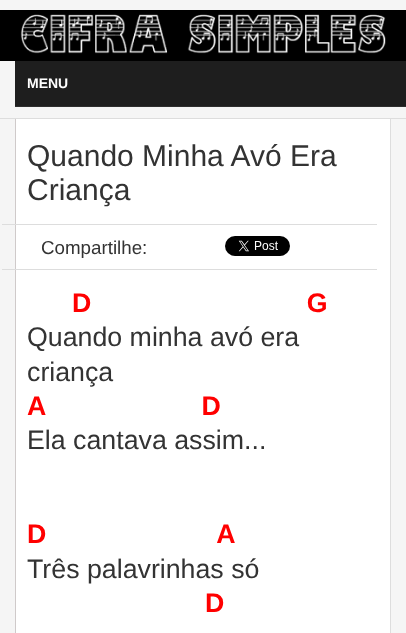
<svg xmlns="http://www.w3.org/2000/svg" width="406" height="633">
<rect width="100%" height="100%" fill="#f5f5f5"/>
<rect y="10" width="406" height="51" fill="#000"/>
<image x="20" y="14" width="366" height="40" href="media/1.png"/>
<rect x="15" y="61" width="391" height="45" fill="#1e1e1e"/>
<rect x="15" y="106" width="391" height="1" fill="#2e2e2e"/>
<text x="27" y="88" style="font-family:Liberation Sans;font-size:14px;font-weight:bold;fill:#fff">MENU</text>
<rect y="118" width="406" height="1" fill="#ddd"/>
<rect x="16" y="119" width="374" height="514" fill="#fff"/>
<rect x="15" y="119" width="1" height="514" fill="#cfcaca"/>
<rect x="390" y="119" width="1" height="514" fill="#ddd"/>
<text x="27" y="166" style="font-family:Liberation Sans;font-size:30px;fill:#333">Quando Minha Avó Era</text>
<text x="27" y="200" style="font-family:Liberation Sans;font-size:30px;fill:#333">Criança</text>
<rect x="2" y="224" width="375" height="1" fill="#ddd"/>
<rect x="2" y="269" width="375" height="1" fill="#ddd"/>
<text x="41" y="254" style="font-family:Liberation Sans;font-size:18.75px;fill:#333">Compartilhe:</text>
<image x="225" y="236" width="65" height="20" href="media/2.png"/>
<text x="72" y="312" style="font-family:Liberation Sans;font-size:26.75px;font-weight:bold;fill:#f00" xml:space="preserve">D                             G</text>
<text x="27" y="346" style="font-family:Liberation Sans;font-size:26.75px;fill:#333">Quando minha avó era</text>
<text x="27" y="381" style="font-family:Liberation Sans;font-size:26.75px;fill:#333">criança</text>
<text x="27" y="415" style="font-family:Liberation Sans;font-size:26.75px;font-weight:bold;fill:#f00" xml:space="preserve">A                     D</text>
<text x="27" y="449" style="font-family:Liberation Sans;font-size:26.75px;fill:#333">Ela cantava assim...</text>
<text x="27" y="543" style="font-family:Liberation Sans;font-size:26.75px;font-weight:bold;fill:#f00" xml:space="preserve">D                       A</text>
<text x="27" y="578" style="font-family:Liberation Sans;font-size:26.75px;fill:#333">Três palavrinhas só</text>
<text x="205" y="612" style="font-family:Liberation Sans;font-size:26.75px;font-weight:bold;fill:#f00">D</text>
</svg>
